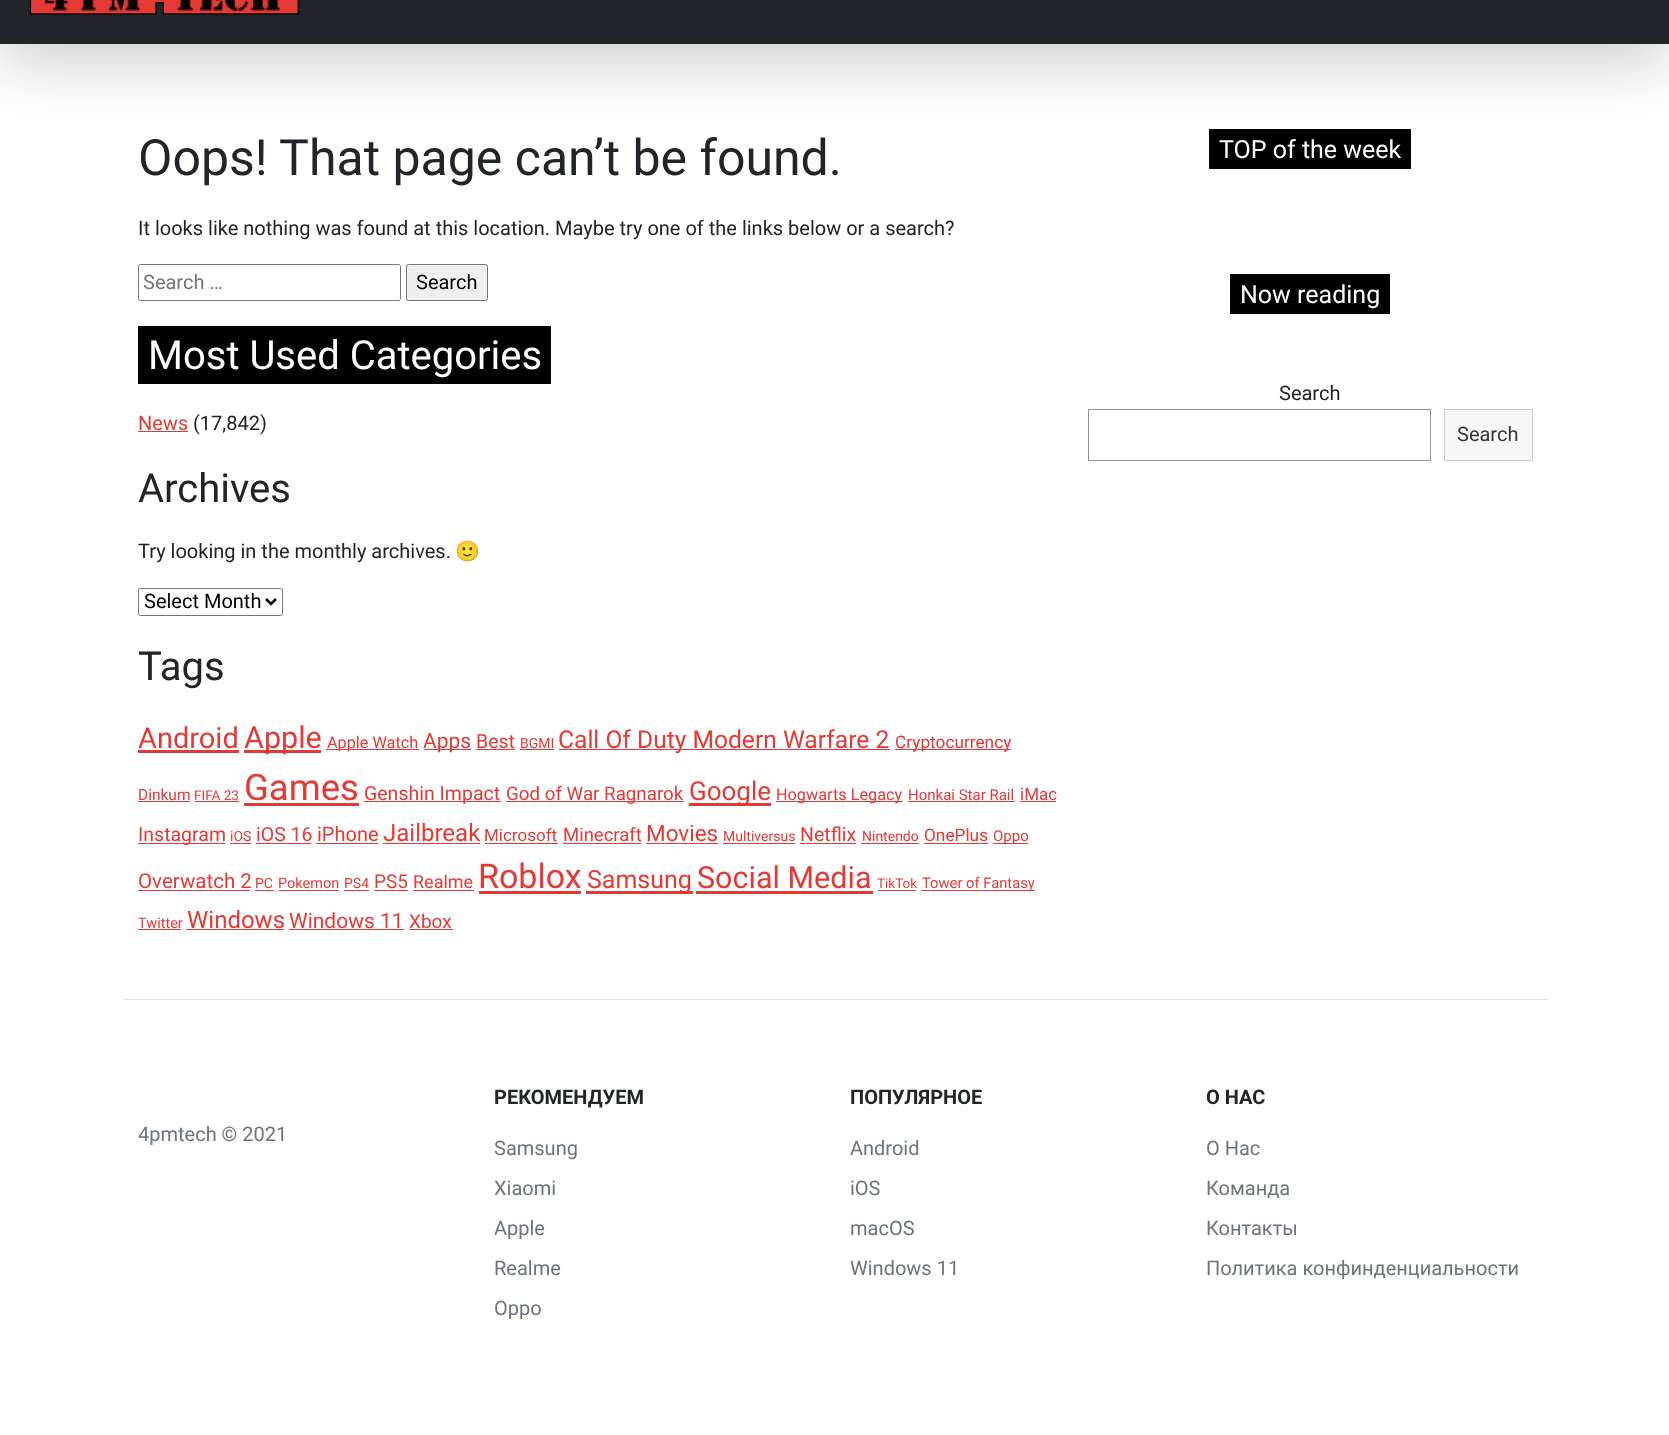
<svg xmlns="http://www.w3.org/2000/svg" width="1669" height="1435">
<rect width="100%" height="100%" fill="#fff"/>
<rect x="1209" y="129" width="202" height="40" fill="#000"/>
<rect y="-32" width="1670" height="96" fill="#0000002e" filter="blur(30px)"/>
<rect width="1669" height="44" fill="#212529"/>
<image x="29" y="0" width="270" height="15" href="media/1.png"/>
<text x="138" y="175" style="font-family:Roboto;font-size:50px;fill:#212529">Oops! That page can’t be found.</text>
<text x="138" y="235" style="font-family:Roboto;font-size:20px;fill:#212529">It looks like nothing was found at this location. Maybe try one of the links below or a search?</text>
<rect x="138.5" y="264.5" width="262" height="36" rx="2" fill="none" stroke="#767676"/>
<text x="143" y="289" style="font-family:Roboto;font-size:20px;fill:#757575">Search …</text>
<rect x="406.5" y="264.5" width="81" height="36" rx="2" fill="#efefef" stroke="#767676"/>
<text x="416" y="289" style="font-family:Roboto;font-size:20px;fill:#000">Search</text>
<rect x="138" y="326" width="413" height="58" fill="#000"/>
<text x="148" y="369" style="font-family:Roboto;font-size:40px;fill:#fff">Most Used Categories</text>
<text x="138" y="430" style="font-family:Roboto;font-size:20px;fill:#e53935">News</text>
<rect x="138" y="431" width="50" height="1" fill="#e53935"/>
<text x="193" y="430" style="font-family:Roboto;font-size:20px;fill:#212529">(17,842)</text>
<text x="138" y="502" style="font-family:Roboto;font-size:40px;fill:#212529">Archives</text>
<text x="138" y="558" style="font-family:Roboto;font-size:20px;fill:#212529">Try looking in the monthly archives.</text>
<text x="455" y="558" style="font-family:Noto Color Emoji;font-size:20px;fill:#212529">🙂</text>
<rect x="138.5" y="588.5" width="144" height="27" rx="2" fill="none" stroke="#767676"/>
<path d="M266 599l5 5l5-5" fill="none" stroke="#000" stroke-width="2.5"/>
<text x="144" y="608" style="font-family:Roboto;font-size:20px;fill:#000">Select Month</text>
<text x="138" y="680" style="font-family:Roboto;font-size:40px;fill:#212529">Tags</text>
<text x="138" y="748" style="font-family:Roboto;font-size:29px;fill:#e53935">Android</text>
<rect x="138" y="750" width="101" height="3" fill="#e53935"/>
<rect x="244" y="750" width="77" height="3" fill="#e53935"/>
<text x="244" y="748" style="font-family:Roboto;font-size:30.5px;fill:#e53935">Apple</text>
<rect x="326" y="749" width="93" height="1" fill="#e53935"/>
<text x="327" y="748" style="font-family:Roboto;font-size:16.25px;fill:#e53935">Apple Watch</text>
<rect x="424" y="749" width="47" height="1" fill="#e53935"/>
<text x="423" y="748" style="font-family:Roboto;font-size:21px;fill:#e53935">Apps</text>
<text x="476" y="748" style="font-family:Roboto;font-size:19.5px;fill:#e53935">Best</text>
<rect x="476" y="749" width="39" height="1" fill="#e53935"/>
<text x="520" y="748" style="font-family:Roboto;font-size:14px;fill:#e53935">BGMI</text>
<rect x="520" y="749" width="34" height="1" fill="#e53935"/>
<rect x="559" y="749" width="331" height="1" fill="#e53935"/>
<text x="558" y="748" style="font-family:Roboto;font-size:24.6px;fill:#e53935">Call Of Duty Modern Warfare 2</text>
<rect x="895" y="749" width="116" height="1" fill="#e53935"/>
<text x="895" y="748" style="font-family:Roboto;font-size:17.25px;fill:#e53935">Cryptocurrency</text>
<text x="138" y="800" style="font-family:Roboto;font-size:15.5px;fill:#e53935">Dinkum</text>
<rect x="138" y="801" width="52" height="1" fill="#e53935"/>
<text x="194" y="800" style="font-family:Roboto;font-size:13.5px;fill:#e53935">FIFA 23</text>
<rect x="195" y="801" width="44" height="1" fill="#e53935"/>
<text x="244" y="800" style="font-family:Roboto;font-size:36.5px;fill:#e53935">Games</text>
<rect x="244" y="803" width="115" height="3" fill="#e53935"/>
<rect x="364" y="801" width="137" height="1" fill="#e53935"/>
<text x="364" y="800" style="font-family:Roboto;font-size:19.5px;fill:#e53935">Genshin Impact</text>
<rect x="506" y="801" width="178" height="1" fill="#e53935"/>
<text x="506" y="800" style="font-family:Roboto;font-size:18.75px;fill:#e53935">God of War Ragnarok</text>
<rect x="689" y="803" width="82" height="3" fill="#e53935"/>
<text x="689" y="800" style="font-family:Roboto;font-size:26px;fill:#e53935">Google</text>
<rect x="776" y="801" width="127" height="1" fill="#e53935"/>
<text x="776" y="800" style="font-family:Roboto;font-size:16.25px;fill:#e53935">Hogwarts Legacy</text>
<text x="908" y="800" style="font-family:Roboto;font-size:15px;fill:#e53935">Honkai Star Rail</text>
<rect x="908" y="801" width="107" height="1" fill="#e53935"/>
<text x="1020" y="800" style="font-family:Roboto;font-size:17px;fill:#e53935">iMac</text>
<rect x="1020" y="801" width="36" height="1" fill="#e53935"/>
<rect x="138" y="843" width="87" height="1" fill="#e53935"/>
<text x="138" y="841" style="font-family:Roboto;font-size:19.5px;fill:#e53935">Instagram</text>
<text x="230" y="841" style="font-family:Roboto;font-size:14px;fill:#e53935">iOS</text>
<rect x="230" y="843" width="21" height="1" fill="#e53935"/>
<text x="256" y="841" style="font-family:Roboto;font-size:19.5px;fill:#e53935">iOS 16</text>
<rect x="256" y="843" width="55" height="1" fill="#e53935"/>
<text x="317" y="841" style="font-family:Roboto;font-size:20px;fill:#e53935">iPhone</text>
<rect x="316" y="843" width="62" height="1" fill="#e53935"/>
<text x="383" y="841" style="font-family:Roboto;font-size:24px;fill:#e53935">Jailbreak</text>
<rect x="383" y="843" width="97" height="1" fill="#e53935"/>
<text x="484" y="841" style="font-family:Roboto;font-size:17px;fill:#e53935">Microsoft</text>
<rect x="485" y="843" width="73" height="1" fill="#e53935"/>
<text x="563" y="841" style="font-family:Roboto;font-size:18.5px;fill:#e53935">Minecraft</text>
<rect x="563" y="843" width="78" height="1" fill="#e53935"/>
<text x="646" y="841" style="font-family:Roboto;font-size:22.5px;fill:#e53935">Movies</text>
<rect x="646" y="843" width="72" height="1" fill="#e53935"/>
<text x="723" y="841" style="font-family:Roboto;font-size:14px;fill:#e53935">Multiversus</text>
<rect x="723" y="843" width="72" height="1" fill="#e53935"/>
<text x="800" y="841" style="font-family:Roboto;font-size:19.5px;fill:#e53935">Netflix</text>
<rect x="800" y="843" width="56" height="1" fill="#e53935"/>
<text x="862" y="841" style="font-family:Roboto;font-size:14px;fill:#e53935">Nintendo</text>
<rect x="861" y="843" width="58" height="1" fill="#e53935"/>
<text x="924" y="841" style="font-family:Roboto;font-size:17.25px;fill:#e53935">OnePlus</text>
<rect x="924" y="843" width="64" height="1" fill="#e53935"/>
<rect x="993" y="843" width="35" height="1" fill="#e53935"/>
<text x="993" y="841" style="font-family:Roboto;font-size:15px;fill:#e53935">Oppo</text>
<text x="138" y="888" style="font-family:Roboto;font-size:20.5px;fill:#e53935">Overwatch 2</text>
<rect x="138" y="890" width="112" height="1" fill="#e53935"/>
<text x="255" y="888" style="font-family:Roboto;font-size:14px;fill:#e53935">PC</text>
<rect x="255" y="890" width="19" height="1" fill="#e53935"/>
<text x="278" y="888" style="font-family:Roboto;font-size:14.5px;fill:#e53935">Pokemon</text>
<rect x="279" y="890" width="60" height="1" fill="#e53935"/>
<text x="344" y="888" style="font-family:Roboto;font-size:14px;fill:#e53935">PS4</text>
<rect x="344" y="890" width="25" height="1" fill="#e53935"/>
<text x="374" y="888" style="font-family:Roboto;font-size:19px;fill:#e53935">PS5</text>
<rect x="374" y="890" width="34" height="1" fill="#e53935"/>
<text x="413" y="888" style="font-family:Roboto;font-size:18px;fill:#e53935">Realme</text>
<rect x="413" y="890" width="61" height="1" fill="#e53935"/>
<text x="478" y="888" style="font-family:Roboto;font-size:34px;fill:#e53935">Roblox</text>
<rect x="479" y="891" width="102" height="3" fill="#e53935"/>
<rect x="586" y="891" width="107" height="3" fill="#e53935"/>
<text x="587" y="888" style="font-family:Roboto;font-size:25px;fill:#e53935">Samsung</text>
<text x="697" y="888" style="font-family:Roboto;font-size:30.5px;fill:#e53935">Social Media</text>
<rect x="696" y="891" width="177" height="3" fill="#e53935"/>
<text x="877" y="888" style="font-family:Roboto;font-size:13.5px;fill:#e53935">TikTok</text>
<rect x="878" y="890" width="38" height="1" fill="#e53935"/>
<rect x="921" y="890" width="114" height="1" fill="#e53935"/>
<text x="922" y="888" style="font-family:Roboto;font-size:14.75px;fill:#e53935">Tower of Fantasy</text>
<text x="138" y="928" style="font-family:Roboto;font-size:14.5px;fill:#e53935">Twitter</text>
<rect x="138" y="929" width="43" height="1" fill="#e53935"/>
<text x="187" y="928" style="font-family:Roboto;font-size:24px;fill:#e53935">Windows</text>
<rect x="186" y="929" width="98" height="1" fill="#e53935"/>
<text x="289" y="928" style="font-family:Roboto;font-size:21px;fill:#e53935">Windows 11</text>
<rect x="289" y="929" width="115" height="1" fill="#e53935"/>
<text x="409" y="928" style="font-family:Roboto;font-size:19px;fill:#e53935">Xbox</text>
<rect x="409" y="929" width="44" height="1" fill="#e53935"/>
<text x="1219" y="158" style="font-family:Roboto;font-size:25px;fill:#fff">TOP of the week</text>
<rect x="1230" y="274" width="160" height="40" fill="#000"/>
<text x="1240" y="303" style="font-family:Roboto;font-size:25px;fill:#fff">Now reading</text>
<text x="1279" y="400" style="font-family:Roboto;font-size:20px;fill:#212529">Search</text>
<rect x="1088.5" y="409.5" width="342" height="51" fill="none" stroke="#949494"/>
<rect x="1444.5" y="409.5" width="88" height="51" fill="#f7f7f7" stroke="#ccc"/>
<text x="1457" y="441" style="font-family:Roboto;font-size:20px;fill:#32373c">Search</text>
<rect x="123" y="999" width="1425" height="1" fill="#dee2e6"/>
<text x="138" y="1141" style="font-family:Roboto;font-size:20px;fill:#6c757d">4pmtech © 2021</text>
<text x="494" y="1104" style="font-family:Roboto;font-size:20px;font-weight:bold;fill:#212529">РЕКОМЕНДУЕМ</text>
<text x="494" y="1155" style="font-family:Roboto;font-size:20px;fill:#6c757d">Samsung</text>
<text x="494" y="1195" style="font-family:Roboto;font-size:20px;fill:#6c757d">Xiaomi</text>
<text x="494" y="1235" style="font-family:Roboto;font-size:20px;fill:#6c757d">Apple</text>
<text x="494" y="1275" style="font-family:Roboto;font-size:20px;fill:#6c757d">Realme</text>
<text x="494" y="1315" style="font-family:Roboto;font-size:20px;fill:#6c757d">Oppo</text>
<text x="850" y="1104" style="font-family:Roboto;font-size:20px;font-weight:bold;fill:#212529">ПОПУЛЯРНОЕ</text>
<text x="850" y="1155" style="font-family:Roboto;font-size:20px;fill:#6c757d">Android</text>
<text x="850" y="1195" style="font-family:Roboto;font-size:20px;fill:#6c757d">iOS</text>
<text x="850" y="1235" style="font-family:Roboto;font-size:20px;fill:#6c757d">macOS</text>
<text x="850" y="1275" style="font-family:Roboto;font-size:20px;fill:#6c757d">Windows 11</text>
<text x="1206" y="1104" style="font-family:Roboto;font-size:20px;font-weight:bold;fill:#212529">О НАС</text>
<text x="1206" y="1155" style="font-family:Roboto;font-size:20px;fill:#6c757d">О Нас</text>
<text x="1206" y="1195" style="font-family:Roboto;font-size:20px;fill:#6c757d">Команда</text>
<text x="1206" y="1235" style="font-family:Roboto;font-size:20px;fill:#6c757d">Контакты</text>
<text x="1206" y="1275" style="font-family:Roboto;font-size:20px;fill:#6c757d">Политика конфинденциальности</text>
</svg>
